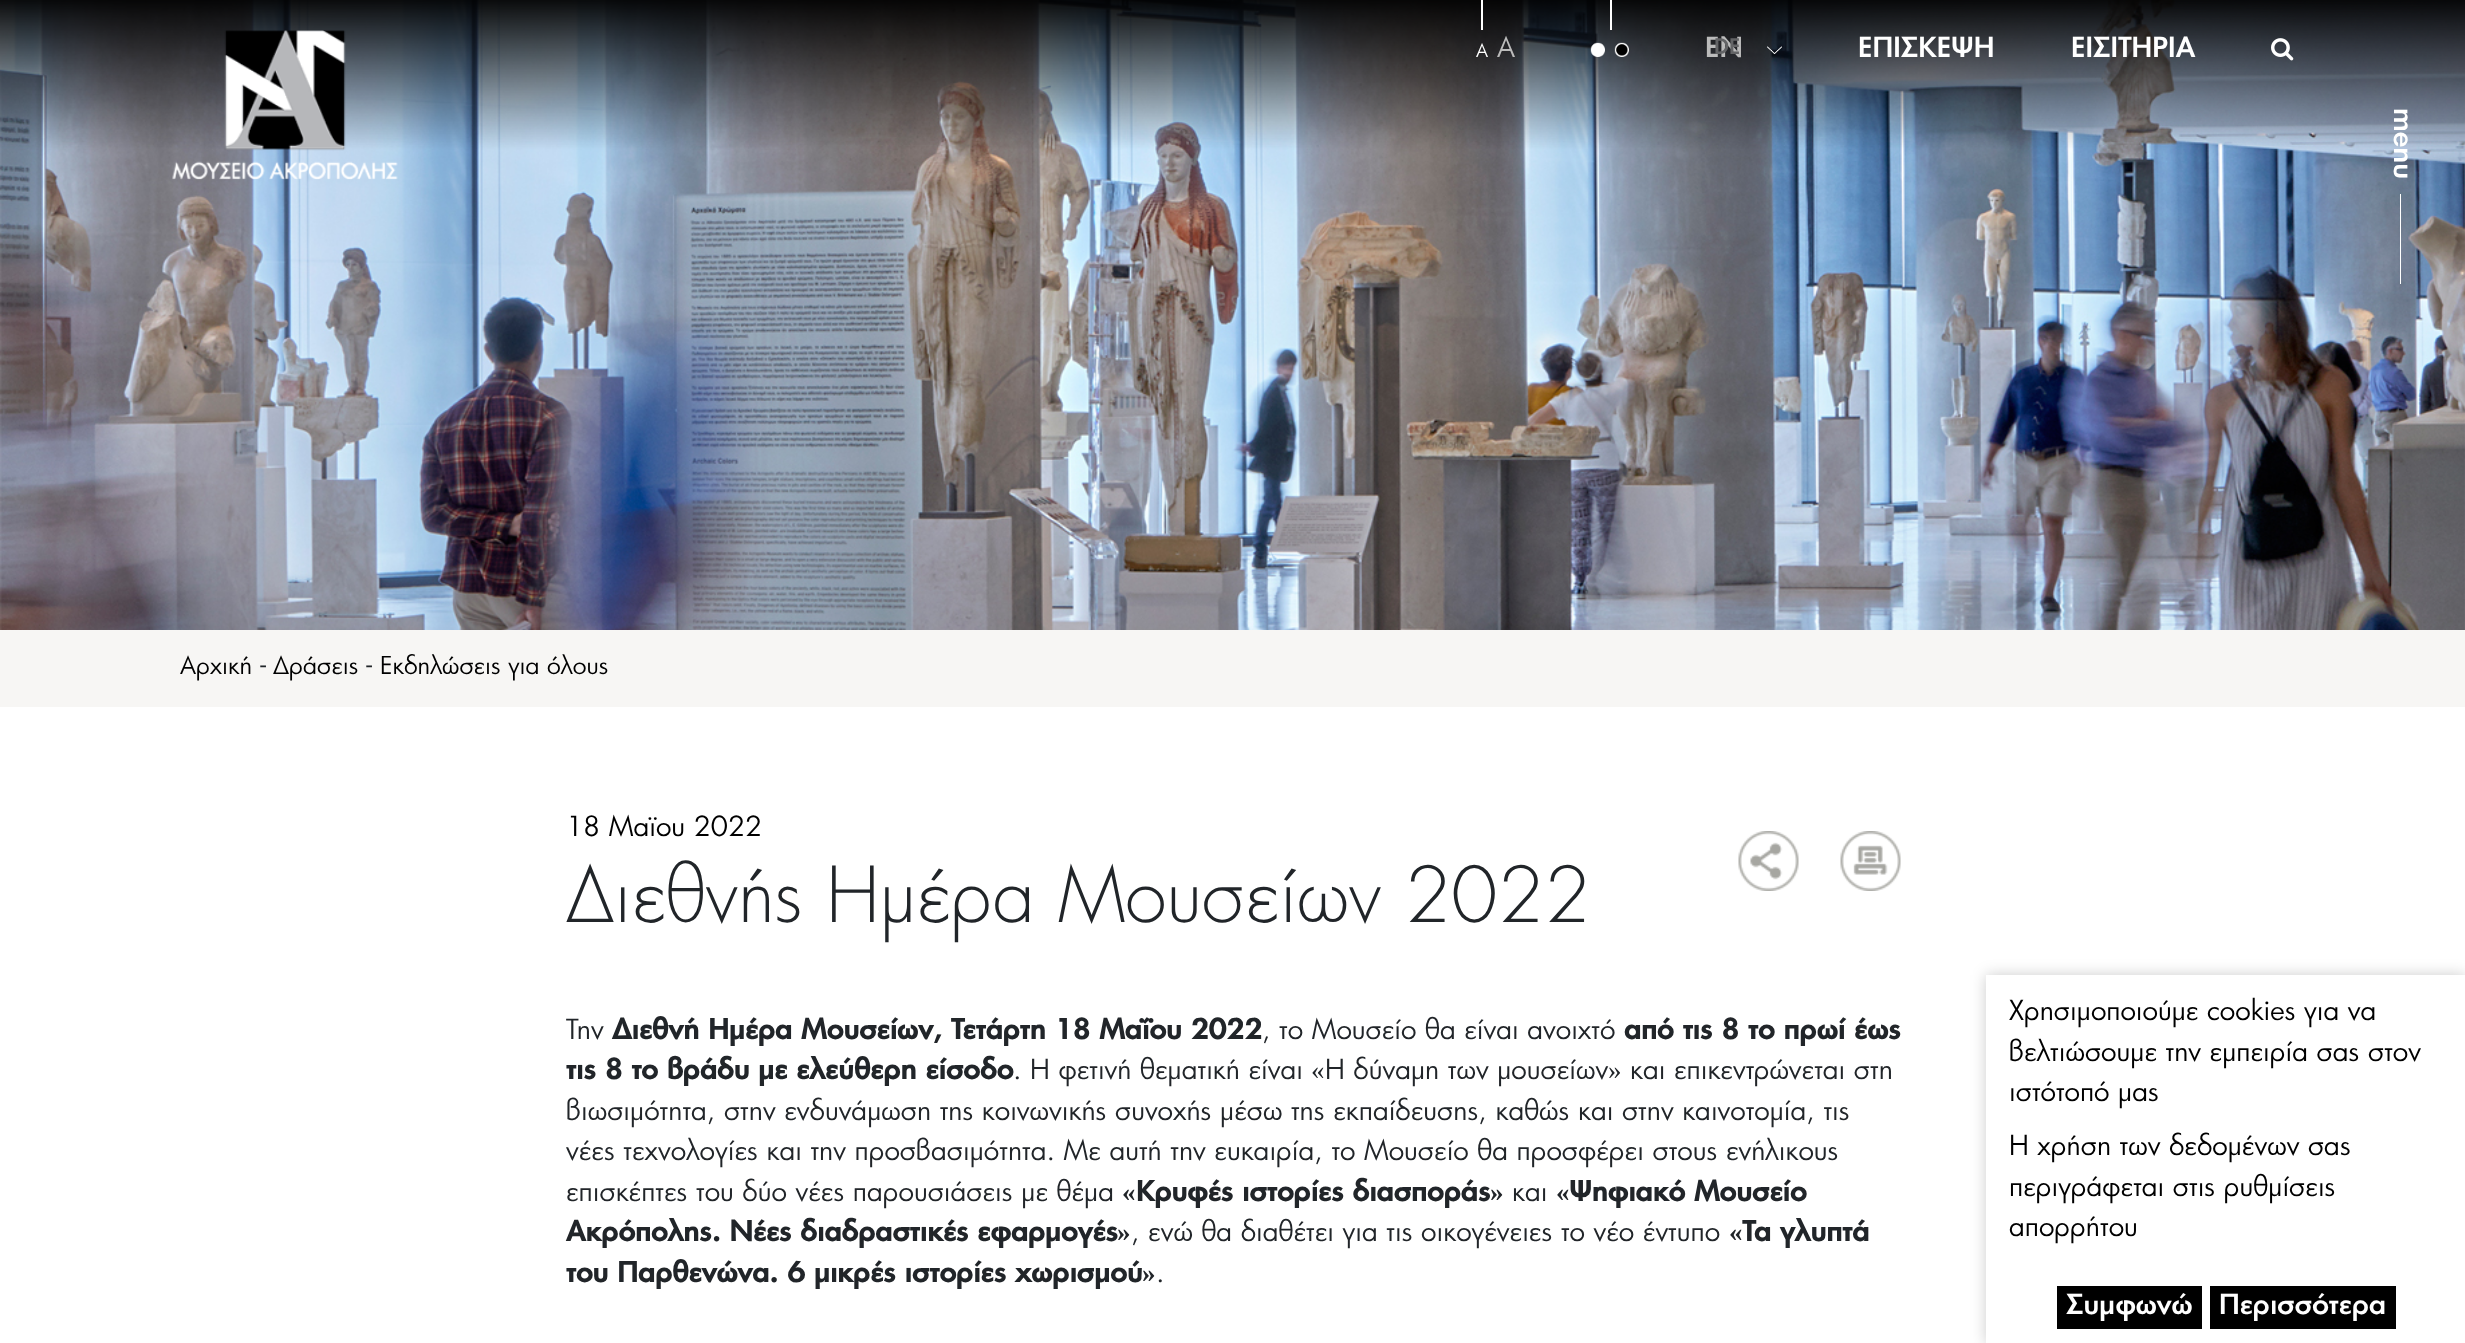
<svg xmlns="http://www.w3.org/2000/svg" width="2465" height="1343">
<defs>
<clipPath id="clip1"><path d="M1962 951h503v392h-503zm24 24h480v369h-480z" clip-rule="evenodd"/></clipPath>
</defs>
<rect width="100%" height="100%" fill="#fff"/>
<image x="0" y="0" width="2465" height="630" href="media/1.png"/>
<image x="172" y="30" width="226" height="150" href="media/2.png"/>
<rect x="1481" width="2" height="30" fill="#fff"/>
<text x="1476" y="57" style="font-family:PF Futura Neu;font-size:18px;fill:#fff">A</text>
<text x="1497" y="57" style="font-family:PF Futura Neu;font-size:27px;fill:#bbb">A</text>
<rect x="1610" width="2" height="30" fill="#fff"/>
<image x="1590" y="42" width="15" height="15" href="media/3.png"/>
<image x="1614" y="42" width="15" height="15" href="media/4.png"/>
<text x="1705" y="57" style="font-family:PF Futura Neu;font-size:27px;font-weight:500;fill:#bbb">EN</text>
<image x="1767" y="46" width="15" height="8" href="media/5.png"/>
<text x="1714" y="54" style="font-family:PF Futura Neu;font-size:21px;font-weight:500;fill:#636466">DE</text>
<text x="1858" y="57" style="font-family:PF Futura Neu;font-size:27px;font-weight:500;fill:#fff">ΕΠΙΣΚΕΨΗ</text>
<text x="2071" y="57" style="font-family:PF Futura Neu;font-size:27px;font-weight:500;fill:#fff">ΕΙΣΙΤΗΡΙΑ</text>
<image x="2271" y="38" width="23" height="23" href="media/6.png"/>
<text x="2394" y="108" transform="rotate(90 2394 108)" style="font-family:PF Futura Neu;font-size:27px;font-weight:500;fill:#fff">menu</text>
<rect x="2400" y="194" width="1" height="90" fill="#fff"/>
<rect y="630" width="2465" height="77" fill="#f7f6f4"/>
<text x="180" y="674" style="font-family:PF Futura Neu;font-size:24px;fill:#000">Αρχική</text>
<text x="260" y="675" style="font-family:PF Futura Neu;font-size:27px;fill:#212529">-</text>
<text x="273" y="674" style="font-family:PF Futura Neu;font-size:24px;fill:#000">Δράσεις</text>
<text x="366" y="675" style="font-family:PF Futura Neu;font-size:27px;fill:#212529">-</text>
<text x="380" y="674" style="font-family:PF Futura Neu;font-size:24px;fill:#000">Εκδηλώσεις για όλους</text>
<text x="566" y="836" style="font-family:PF Futura Neu;font-size:27px;fill:#000">18 Μαϊου 2022</text>
<text x="566" y="922" style="font-family:PF Futura Neu;font-size:75px;font-weight:300;fill:#212529">Διεθνής Ημέρα Μουσείων 2022</text>
<image x="1738" y="831" width="61" height="60" href="media/7.png"/>
<image x="1840" y="831" width="61" height="60" href="media/8.png"/>
<text x="566" y="1039" style="font-family:PF Futura Neu;font-size:27px;fill:#212529">Την</text>
<text x="612" y="1039" style="font-family:PF Futura Neu;font-size:27px;font-weight:bold;fill:#212529">Διεθνή Ημέρα Μουσείων, Τετάρτη 18 Μαΐου 2022</text>
<text x="1262" y="1039" style="font-family:PF Futura Neu;font-size:27px;fill:#212529">, το Μουσείο θα είναι ανοιχτό</text>
<text x="1624" y="1039" style="font-family:PF Futura Neu;font-size:27px;font-weight:bold;fill:#212529">από τις 8 το πρωί έως</text>
<text x="566" y="1079" style="font-family:PF Futura Neu;font-size:27px;font-weight:bold;fill:#212529">τις 8 το βράδυ με ελεύθερη είσοδο</text>
<text x="1013" y="1079" style="font-family:PF Futura Neu;font-size:27px;fill:#212529">. Η φετινή θεματική είναι</text>
<text x="1311" y="1079" style="font-family:Liberation Serif;font-size:27px;fill:#212529">«</text>
<text x="1325" y="1079" style="font-family:PF Futura Neu;font-size:27px;fill:#212529">Η δύναμη των μουσείων</text>
<text x="1608" y="1079" style="font-family:Liberation Serif;font-size:27px;fill:#212529">»</text>
<text x="1630" y="1079" style="font-family:PF Futura Neu;font-size:27px;fill:#212529">και επικεντρώνεται στη</text>
<text x="566" y="1120" style="font-family:PF Futura Neu;font-size:27px;fill:#212529">βιωσιμότητα, στην ενδυνάμωση της κοινωνικής συνοχής μέσω της εκπαίδευσης, καθώς και στην καινοτομία, τις</text>
<text x="566" y="1160" style="font-family:PF Futura Neu;font-size:27px;fill:#212529">νέες τεχνολογίες και την προσβασιμότητα. Με αυτή την ευκαιρία, το Μουσείο θα προσφέρει στους ενήλικους</text>
<text x="566" y="1201" style="font-family:PF Futura Neu;font-size:27px;fill:#212529">επισκέπτες του δύο νέες παρουσιάσεις με θέμα</text>
<text x="1122" y="1201" style="font-family:Liberation Serif;font-size:27px;font-weight:bold;fill:#212529">«</text>
<text x="1136" y="1201" style="font-family:PF Futura Neu;font-size:27px;font-weight:bold;fill:#212529">Κρυφές ιστορίες διασποράς</text>
<text x="1490" y="1201" style="font-family:Liberation Serif;font-size:27px;font-weight:bold;fill:#212529">»</text>
<text x="1512" y="1201" style="font-family:PF Futura Neu;font-size:27px;fill:#212529">και</text>
<text x="1556" y="1201" style="font-family:Liberation Serif;font-size:27px;font-weight:bold;fill:#212529">«</text>
<text x="1569" y="1201" style="font-family:PF Futura Neu;font-size:27px;font-weight:bold;fill:#212529">Ψηφιακό Μουσείο</text>
<text x="566" y="1241" style="font-family:PF Futura Neu;font-size:27px;font-weight:bold;fill:#212529">Ακρόπολης. Νέες διαδραστικές εφαρμογές</text>
<text x="1117" y="1241" style="font-family:Liberation Serif;font-size:27px;font-weight:bold;fill:#212529">»</text>
<text x="1131" y="1241" style="font-family:PF Futura Neu;font-size:27px;fill:#212529">, ενώ θα διαθέτει για τις οικογένειες το νέο έντυπο</text>
<text x="1729" y="1241" style="font-family:Liberation Serif;font-size:27px;font-weight:bold;fill:#212529">«</text>
<text x="1742" y="1241" style="font-family:PF Futura Neu;font-size:27px;font-weight:bold;fill:#212529">Τα γλυπτά</text>
<text x="566" y="1282" style="font-family:PF Futura Neu;font-size:27px;font-weight:bold;fill:#212529">του Παρθενώνα. 6 μικρές ιστορίες χωρισμού</text>
<text x="1142" y="1282" style="font-family:Liberation Serif;font-size:27px;font-weight:bold;fill:#212529">»</text>
<text x="1156" y="1282" style="font-family:PF Futura Neu;font-size:27px;fill:#212529">.</text>
<g clip-path="url(#clip1)">
<rect x="1986" y="975" width="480" height="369" fill="#00000033" filter="blur(7.5px)"/>
</g>
<text x="2009" y="1020" style="font-family:PF Futura Neu;font-size:27px;fill:#000">Χρησιμοποιούμε cookies για να</text>
<text x="2009" y="1061" style="font-family:PF Futura Neu;font-size:27px;fill:#000">βελτιώσουμε την εμπειρία σας στον</text>
<text x="2009" y="1101" style="font-family:PF Futura Neu;font-size:27px;fill:#000">ιστότοπό μας</text>
<text x="2009" y="1155" style="font-family:PF Futura Neu;font-size:27px;fill:#000">Η χρήση των δεδομένων σας</text>
<text x="2009" y="1196" style="font-family:PF Futura Neu;font-size:27px;fill:#000">περιγράφεται στις ρυθμίσεις</text>
<text x="2009" y="1236" style="font-family:PF Futura Neu;font-size:27px;fill:#000">απορρήτου</text>
<rect x="2057" y="1286" width="145" height="43" fill="#000"/>
<text x="2066" y="1314" style="font-family:PF Futura Neu;font-size:27px;font-weight:500;fill:#fff">Συμφωνώ</text>
<rect x="2210" y="1286" width="186" height="43" fill="#000"/>
<text x="2219" y="1314" style="font-family:PF Futura Neu;font-size:27px;font-weight:500;fill:#fff">Περισσότερα</text>
</svg>
